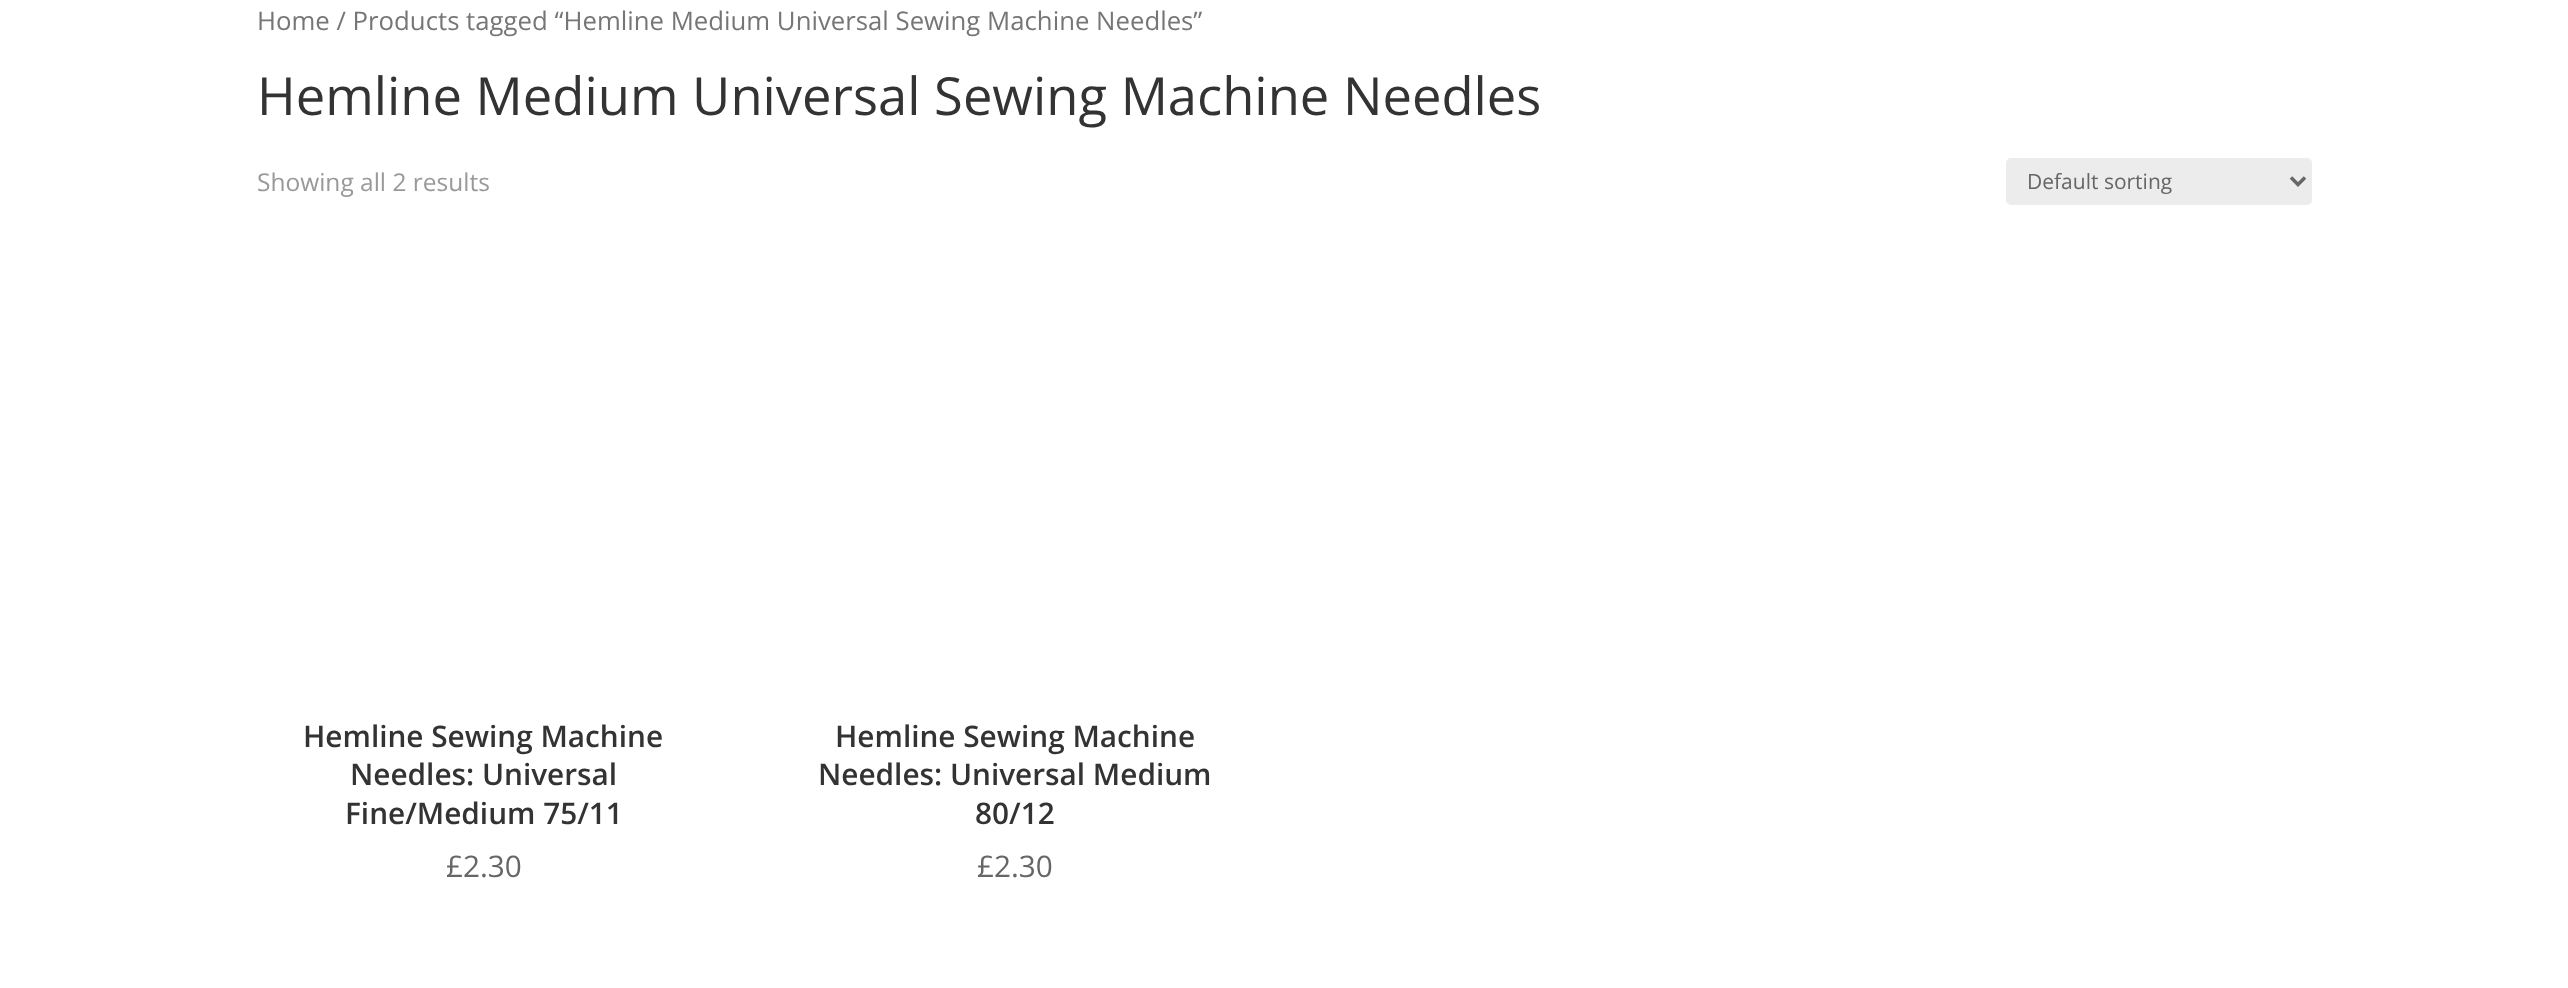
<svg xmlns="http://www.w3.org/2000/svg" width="2568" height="988">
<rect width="100%" height="100%" fill="#fff"/>
<text x="257" y="30" style="font-family:Open Sans;font-size:25.75px;fill:#767676">Home / Products tagged “Hemline Medium Universal Sewing Machine Needles”</text>
<text x="257" y="115" style="font-family:Open Sans;font-size:52.5px;fill:#333">Hemline Medium Universal Sewing Machine Needles</text>
<text x="257" y="191" style="font-family:Open Sans;font-size:24.5px;fill:#999">Showing all 2 results</text>
<rect x="2006" y="158" width="306" height="47" rx="5" fill="#ececec"/>
<path d="M2291 177.5l7 7l7-7" fill="none" stroke="#666" stroke-width="3.5"/>
<text x="2027" y="189" style="font-family:Open Sans;font-size:21px;fill:#666">Default sorting</text>
<text x="303" y="747" style="font-family:Open Sans;font-size:29.75px;font-weight:600;fill:#333">Hemline Sewing Machine</text>
<text x="350" y="785" style="font-family:Open Sans;font-size:29.75px;font-weight:600;fill:#333">Needles: Universal</text>
<text x="345" y="824" style="font-family:Open Sans;font-size:29.75px;font-weight:600;fill:#333">Fine/Medium 75/11</text>
<text x="446" y="877" style="font-family:Open Sans;font-size:29.75px;fill:#666">£2.30</text>
<text x="835" y="747" style="font-family:Open Sans;font-size:29.75px;font-weight:600;fill:#333">Hemline Sewing Machine</text>
<text x="818" y="785" style="font-family:Open Sans;font-size:29.75px;font-weight:600;fill:#333">Needles: Universal Medium</text>
<text x="975" y="824" style="font-family:Open Sans;font-size:29.75px;font-weight:600;fill:#333">80/12</text>
<text x="977" y="877" style="font-family:Open Sans;font-size:29.75px;fill:#666">£2.30</text>
</svg>
